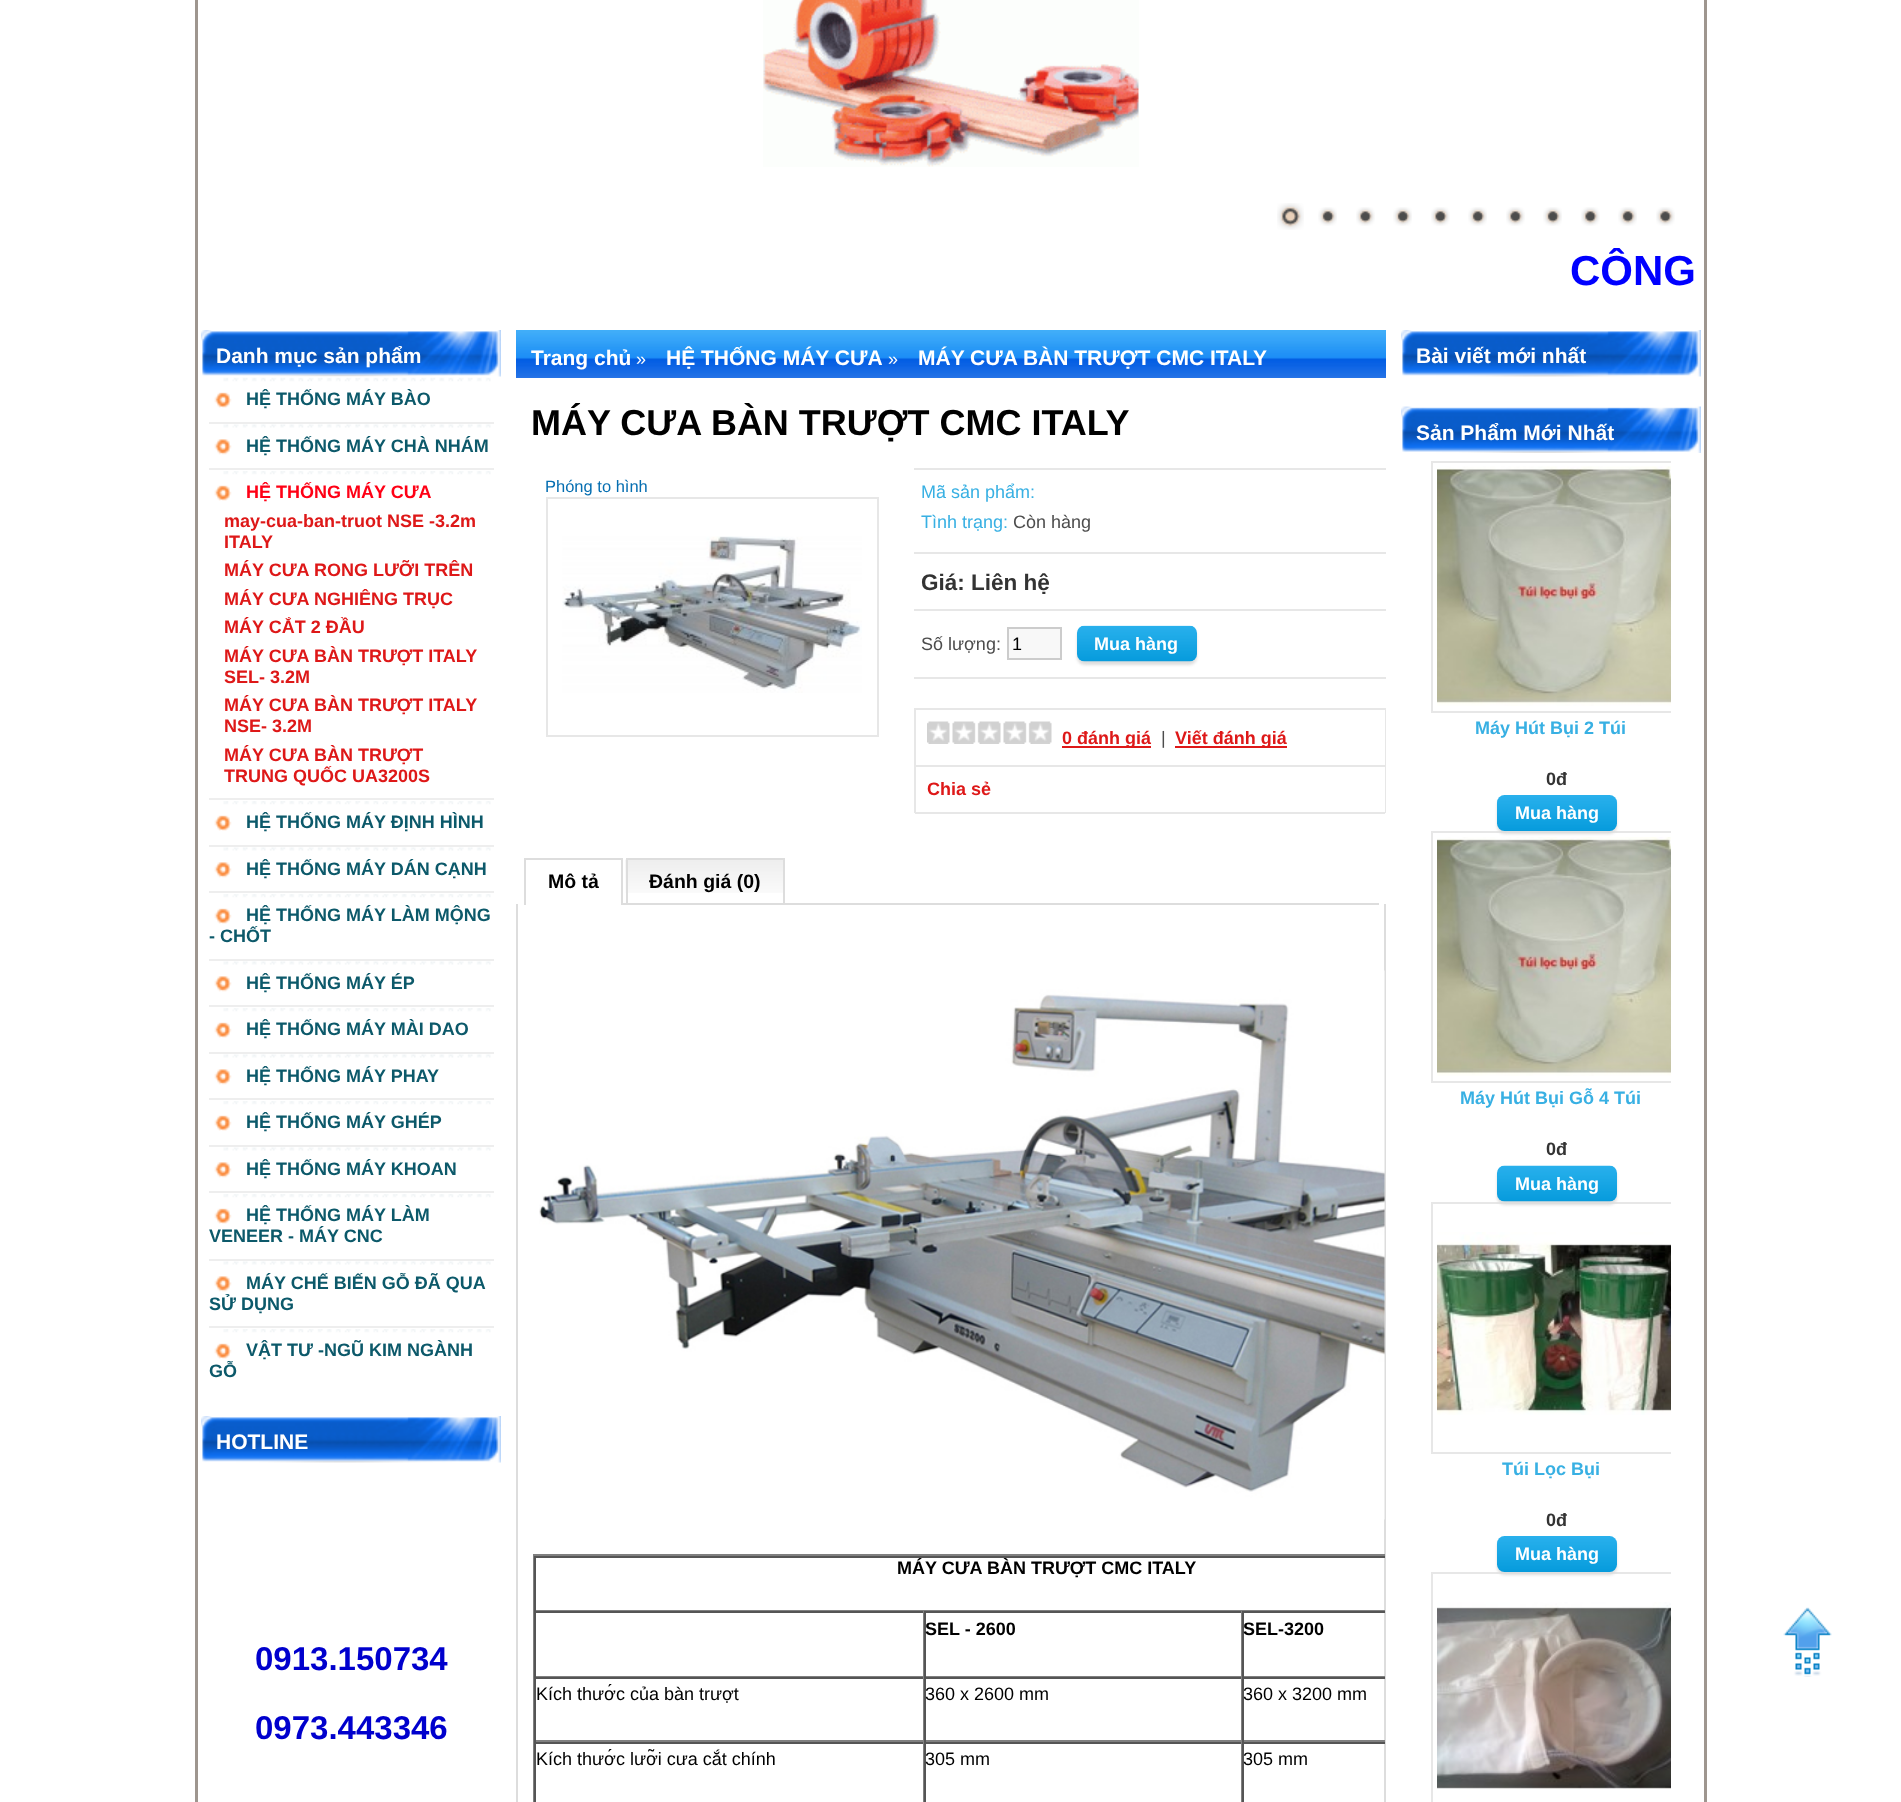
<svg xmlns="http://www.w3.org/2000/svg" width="1901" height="1802">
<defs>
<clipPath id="clip1"><rect x="201" y="248" width="1500" height="78"/></clipPath>
<clipPath id="clip2"><rect x="1431" y="461" width="240" height="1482"/></clipPath>
</defs>
<rect width="100%" height="100%" fill="#fff"/>
<rect x="196.5" y="-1.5" width="1509" height="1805" fill="none" stroke="#9e968f" stroke-width="3"/>
<image x="763" y="0" width="376" height="167" href="media/1.png"/>
<image x="1277" y="203" width="27" height="27" href="media/2.png"/>
<image x="1318" y="207" width="19" height="19" href="media/3.png"/>
<image x="1356" y="207" width="19" height="19" href="media/4.png"/>
<image x="1393" y="207" width="19" height="19" href="media/3.png"/>
<image x="1431" y="207" width="19" height="19" href="media/4.png"/>
<image x="1468" y="207" width="19" height="19" href="media/3.png"/>
<image x="1506" y="207" width="19" height="19" href="media/4.png"/>
<image x="1543" y="207" width="19" height="19" href="media/3.png"/>
<image x="1581" y="207" width="19" height="19" href="media/5.png"/>
<image x="1618" y="207" width="19" height="19" href="media/3.png"/>
<image x="1656" y="207" width="19" height="19" href="media/5.png"/>
<g clip-path="url(#clip1)">
<text x="1570" y="285" style="font-family:Liberation Sans;font-size:42px;font-weight:bold;fill:#00f">CÔNG</text>
</g>
<image x="201" y="330" width="300" height="47" href="media/6.png"/>
<text x="216" y="363" style="font-family:Liberation Sans;font-size:21px;font-weight:bold;fill:#fff">Danh mục sản phẩm</text>
<image x="214" y="376" width="277" height="32" href="media/7.png"/>
<text x="246" y="405" style="font-family:Liberation Sans;font-size:18px;font-weight:bold;fill:#0c596a">HỆ THỐNG MÁY BÀO</text>
<image x="214" y="424" width="277" height="31" href="media/8.png"/>
<rect x="209" y="422" width="285" height="2" fill="#eee"/>
<text x="246" y="452" style="font-family:Liberation Sans;font-size:18px;font-weight:bold;fill:#0c596a">HỆ THỐNG MÁY CHÀ NHÁM</text>
<image x="214" y="471" width="277" height="30" href="media/9.png"/>
<rect x="209" y="468" width="285" height="2" fill="#eee"/>
<text x="246" y="498" style="font-family:Liberation Sans;font-size:18px;font-weight:bold;fill:#ff0015">HỆ THỐNG MÁY CƯA</text>
<text x="224" y="527" style="font-family:Liberation Sans;font-size:18px;font-weight:bold;fill:#de1818">may-cua-ban-truot NSE -3.2m</text>
<text x="224" y="548" style="font-family:Liberation Sans;font-size:18px;font-weight:bold;fill:#de1818">ITALY</text>
<text x="224" y="576" style="font-family:Liberation Sans;font-size:18px;font-weight:bold;fill:#de1818">MÁY CƯA RONG LƯỠI TRÊN</text>
<text x="224" y="605" style="font-family:Liberation Sans;font-size:18px;font-weight:bold;fill:#de1818">MÁY CƯA NGHIÊNG TRỤC</text>
<text x="224" y="633" style="font-family:Liberation Sans;font-size:18px;font-weight:bold;fill:#de1818">MÁY CẮT 2 ĐẦU</text>
<text x="224" y="662" style="font-family:Liberation Sans;font-size:18px;font-weight:bold;fill:#de1818">MÁY CƯA BÀN TRƯỢT ITALY</text>
<text x="224" y="683" style="font-family:Liberation Sans;font-size:18px;font-weight:bold;fill:#de1818">SEL- 3.2M</text>
<text x="224" y="711" style="font-family:Liberation Sans;font-size:18px;font-weight:bold;fill:#de1818">MÁY CƯA BÀN TRƯỢT ITALY</text>
<text x="224" y="732" style="font-family:Liberation Sans;font-size:18px;font-weight:bold;fill:#de1818">NSE- 3.2M</text>
<text x="224" y="761" style="font-family:Liberation Sans;font-size:18px;font-weight:bold;fill:#de1818">MÁY CƯA BÀN TRƯỢT</text>
<text x="224" y="782" style="font-family:Liberation Sans;font-size:18px;font-weight:bold;fill:#de1818">TRUNG QUỐC UA3200S</text>
<image x="214" y="801" width="277" height="30" href="media/9.png"/>
<rect x="209" y="798" width="285" height="2" fill="#eee"/>
<text x="246" y="828" style="font-family:Liberation Sans;font-size:18px;font-weight:bold;fill:#0c596a">HỆ THỐNG MÁY ĐỊNH HÌNH</text>
<image x="214" y="847" width="277" height="31" href="media/8.png"/>
<rect x="209" y="845" width="285" height="2" fill="#eee"/>
<text x="246" y="875" style="font-family:Liberation Sans;font-size:18px;font-weight:bold;fill:#0c596a">HỆ THỐNG MÁY DÁN CẠNH</text>
<image x="214" y="894" width="277" height="30" href="media/9.png"/>
<rect x="209" y="891" width="285" height="2" fill="#eee"/>
<text x="246" y="921" style="font-family:Liberation Sans;font-size:18px;font-weight:bold;fill:#0c596a">HỆ THỐNG MÁY LÀM MỘNG</text>
<text x="209" y="942" style="font-family:Liberation Sans;font-size:18px;font-weight:bold;fill:#0c596a">- CHỐT</text>
<image x="214" y="961" width="277" height="31" href="media/8.png"/>
<rect x="209" y="959" width="285" height="2" fill="#eee"/>
<text x="246" y="989" style="font-family:Liberation Sans;font-size:18px;font-weight:bold;fill:#0c596a">HỆ THỐNG MÁY ÉP</text>
<image x="214" y="1008" width="277" height="30" href="media/9.png"/>
<rect x="209" y="1005" width="285" height="2" fill="#eee"/>
<text x="246" y="1035" style="font-family:Liberation Sans;font-size:18px;font-weight:bold;fill:#0c596a">HỆ THỐNG MÁY MÀI DAO</text>
<image x="214" y="1054" width="277" height="31" href="media/8.png"/>
<rect x="209" y="1052" width="285" height="2" fill="#eee"/>
<text x="246" y="1082" style="font-family:Liberation Sans;font-size:18px;font-weight:bold;fill:#0c596a">HỆ THỐNG MÁY PHAY</text>
<image x="214" y="1101" width="277" height="30" href="media/9.png"/>
<rect x="209" y="1098" width="285" height="2" fill="#eee"/>
<text x="246" y="1128" style="font-family:Liberation Sans;font-size:18px;font-weight:bold;fill:#0c596a">HỆ THỐNG MÁY GHÉP</text>
<image x="214" y="1147" width="277" height="31" href="media/8.png"/>
<rect x="209" y="1145" width="285" height="2" fill="#eee"/>
<text x="246" y="1175" style="font-family:Liberation Sans;font-size:18px;font-weight:bold;fill:#0c596a">HỆ THỐNG MÁY KHOAN</text>
<image x="214" y="1194" width="277" height="30" href="media/9.png"/>
<rect x="209" y="1191" width="285" height="2" fill="#eee"/>
<text x="246" y="1221" style="font-family:Liberation Sans;font-size:18px;font-weight:bold;fill:#0c596a">HỆ THỐNG MÁY LÀM</text>
<text x="209" y="1242" style="font-family:Liberation Sans;font-size:18px;font-weight:bold;fill:#0c596a">VENEER - MÁY CNC</text>
<image x="214" y="1261" width="277" height="31" href="media/8.png"/>
<rect x="209" y="1259" width="285" height="2" fill="#eee"/>
<text x="246" y="1289" style="font-family:Liberation Sans;font-size:18px;font-weight:bold;fill:#0c596a">MÁY CHẾ BIẾN GỖ ĐÃ QUA</text>
<text x="209" y="1310" style="font-family:Liberation Sans;font-size:18px;font-weight:bold;fill:#0c596a">SỬ DỤNG</text>
<image x="214" y="1329" width="277" height="30" href="media/9.png"/>
<rect x="209" y="1326" width="285" height="2" fill="#eee"/>
<text x="246" y="1356" style="font-family:Liberation Sans;font-size:18px;font-weight:bold;fill:#0c596a">VẬT TƯ -NGŨ KIM NGÀNH</text>
<text x="209" y="1377" style="font-family:Liberation Sans;font-size:18px;font-weight:bold;fill:#0c596a">GỖ</text>
<image x="201" y="1416" width="300" height="47" href="media/6.png"/>
<text x="216" y="1449" style="font-family:Liberation Sans;font-size:21px;font-weight:bold;fill:#fff">HOTLINE</text>
<text x="255" y="1670" style="font-family:Liberation Sans;font-size:33px;font-weight:bold;fill:#0000cd">0913.150734</text>
<text x="255" y="1739" style="font-family:Liberation Sans;font-size:33px;font-weight:bold;fill:#0000cd">0973.443346</text>
<image x="516" y="330" width="870" height="48" href="media/10.png"/>
<text x="531" y="365" style="font-family:Liberation Sans;font-size:21px;font-weight:bold;fill:#fff">Trang chủ</text>
<text x="636" y="365" style="font-family:Liberation Sans;font-size:18px;fill:#fff">»</text>
<text x="666" y="365" style="font-family:Liberation Sans;font-size:21px;font-weight:bold;fill:#fff">HỆ THỐNG MÁY CƯA</text>
<text x="888" y="365" style="font-family:Liberation Sans;font-size:18px;fill:#fff">»</text>
<text x="918" y="365" style="font-family:Liberation Sans;font-size:21px;font-weight:bold;fill:#fff">MÁY CƯA BÀN TRƯỢT CMC ITALY</text>
<text x="531" y="435" style="font-family:Liberation Sans;font-size:36px;font-weight:bold;fill:#000">MÁY CƯA BÀN TRƯỢT CMC ITALY</text>
<text x="545" y="492" style="font-family:Liberation Sans;font-size:16.5px;fill:#056eb1">Phóng to hình</text>
<rect x="547" y="498" width="331" height="238" fill="none" stroke="#e7e7e7" stroke-width="2"/>
<image x="562" y="536" width="300" height="157" href="media/11.png"/>
<rect x="914" y="468" width="472" height="2" fill="#e7e7e7"/>
<rect x="914" y="552" width="472" height="2" fill="#e7e7e7"/>
<text x="921" y="498" style="font-family:Liberation Sans;font-size:18px;fill:#38b0e3">Mã sản phẩm:</text>
<text x="921" y="528" style="font-family:Liberation Sans;font-size:18px;fill:#38b0e3">Tình trạng:</text>
<text x="1013" y="528" style="font-family:Liberation Sans;font-size:18px;fill:#4d4d4d">Còn hàng</text>
<rect x="914" y="609" width="472" height="2" fill="#e7e7e7"/>
<text x="921" y="590" style="font-family:Liberation Sans;font-size:22.5px;font-weight:bold;fill:#333">Giá: Liên hệ</text>
<rect x="914" y="677" width="472" height="2" fill="#e7e7e7"/>
<text x="921" y="650" style="font-family:Liberation Sans;font-size:18px;fill:#4d4d4d">Số lượng:</text>
<rect x="1008" y="628" width="53" height="31" fill="#f8f8f8" stroke="#ccc" stroke-width="2"/>
<text x="1012" y="650" style="font-family:Liberation Sans;font-size:18px;fill:#000">1</text>
<rect x="1077" y="629" width="120" height="36" rx="8" fill="#ddd" filter="blur(1.5px)"/>
<image x="1077" y="625" width="120" height="37" href="media/12.png"/>
<text x="1094" y="650" style="font-family:Liberation Sans;font-size:18px;font-weight:bold;fill:#fff">Mua hàng</text>
<rect x="914" y="708" width="472" height="2" fill="#e7e7e7"/>
<rect x="1385" y="708" width="1" height="105" fill="#e7e7e7"/>
<rect x="914" y="708" width="2" height="105" fill="#e7e7e7"/>
<rect x="915" y="765" width="470" height="2" fill="#e7e7e7"/>
<image x="927" y="721" width="125" height="23" href="media/13.png"/>
<rect x="1062" y="746" width="89" height="2" fill="#de1818"/>
<text x="1062" y="744" style="font-family:Liberation Sans;font-size:18px;font-weight:bold;fill:#de1818">0 đánh giá</text>
<text x="1161" y="744" style="font-family:Liberation Sans;font-size:18px;fill:#4d4d4d">|</text>
<rect x="1175" y="746" width="112" height="2" fill="#de1818"/>
<text x="1175" y="744" style="font-family:Liberation Sans;font-size:18px;font-weight:bold;fill:#de1818">Viết đánh giá</text>
<rect x="915" y="812" width="470" height="2" fill="#e7e7e7"/>
<text x="927" y="795" style="font-family:Liberation Sans;font-size:18px;font-weight:bold;fill:#de1818">Chia sẻ</text>
<rect x="623" y="903" width="756" height="2" fill="#ddd"/>
<rect x="524" y="858" width="99" height="2" fill="#ddd"/>
<rect x="621" y="858" width="2" height="47" fill="#ddd"/>
<rect x="524" y="858" width="2" height="47" fill="#ddd"/>
<text x="548" y="888" style="font-family:Liberation Sans;font-size:19.5px;font-weight:bold;fill:#000">Mô tả</text>
<image x="625" y="859" width="158" height="34" href="media/14.png"/>
<rect x="626" y="858" width="159" height="2" fill="#ddd"/>
<rect x="783" y="858" width="2" height="45" fill="#ddd"/>
<rect x="626" y="858" width="2" height="45" fill="#ddd"/>
<text x="649" y="888" style="font-family:Liberation Sans;font-size:19.5px;font-weight:bold;fill:#000">Đánh giá (0)</text>
<path d="M516 904h870v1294c0 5-5 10-10 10h-850c-5 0-10-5-10-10zm2 0h866v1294c0 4-4 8-8 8h-850c-4 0-8-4-8-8z" fill="#ddd" fill-rule="evenodd"/>
<image x="539" y="970" width="846" height="550" href="media/15.png"/>
<rect x="533" y="1554" width="852" height="2" fill="#808080"/>
<rect x="533" y="1554" width="2" height="248" fill="#808080"/>
<rect x="534" y="1556" width="851" height="2" fill="#555"/>
<rect x="534" y="1610" width="851" height="1" fill="#808080"/>
<rect x="534" y="1556" width="2" height="55" fill="#555"/>
<text x="897" y="1574" style="font-family:Liberation Sans;font-size:18px;font-weight:bold;fill:#000">MÁY CƯA BÀN TRƯỢT CMC ITALY</text>
<rect x="534" y="1611" width="851" height="2" fill="#555"/>
<rect x="923" y="1611" width="1" height="66" fill="#808080"/>
<rect x="534" y="1676" width="390" height="1" fill="#808080"/>
<rect x="534" y="1611" width="2" height="66" fill="#555"/>
<rect x="1241" y="1611" width="1" height="66" fill="#808080"/>
<rect x="924" y="1676" width="461" height="1" fill="#808080"/>
<rect x="924" y="1611" width="2" height="66" fill="#555"/>
<text x="925" y="1635" style="font-family:Liberation Sans;font-size:18px;font-weight:bold;fill:#000">SEL - 2600</text>
<rect x="1242" y="1611" width="2" height="66" fill="#555"/>
<text x="1243" y="1635" style="font-family:Liberation Sans;font-size:18px;font-weight:bold;fill:#000">SEL-3200</text>
<rect x="534" y="1677" width="851" height="2" fill="#555"/>
<rect x="923" y="1677" width="1" height="65" fill="#808080"/>
<rect x="534" y="1740" width="390" height="2" fill="#808080"/>
<rect x="534" y="1677" width="2" height="65" fill="#555"/>
<text x="536" y="1700" style="font-family:Liberation Sans;font-size:18px;fill:#000">Kích thước của bàn trượt</text>
<rect x="1241" y="1677" width="1" height="65" fill="#808080"/>
<rect x="924" y="1740" width="461" height="2" fill="#808080"/>
<rect x="924" y="1677" width="2" height="65" fill="#555"/>
<text x="925" y="1700" style="font-family:Liberation Sans;font-size:18px;fill:#000">360 x 2600 mm</text>
<rect x="1242" y="1677" width="2" height="65" fill="#555"/>
<text x="1243" y="1700" style="font-family:Liberation Sans;font-size:18px;fill:#000">360 x 3200 mm</text>
<rect x="534" y="1742" width="851" height="2" fill="#555"/>
<rect x="923" y="1742" width="1" height="60" fill="#808080"/>
<rect x="534" y="1742" width="2" height="60" fill="#555"/>
<text x="536" y="1765" style="font-family:Liberation Sans;font-size:18px;fill:#000">Kích thước lưỡi cưa cắt chính</text>
<rect x="1241" y="1742" width="1" height="60" fill="#808080"/>
<rect x="924" y="1742" width="2" height="60" fill="#555"/>
<text x="925" y="1765" style="font-family:Liberation Sans;font-size:18px;fill:#000">305 mm</text>
<rect x="1242" y="1742" width="2" height="60" fill="#555"/>
<text x="1243" y="1765" style="font-family:Liberation Sans;font-size:18px;fill:#000">305 mm</text>
<image x="1401" y="330" width="300" height="47" href="media/6.png"/>
<text x="1416" y="363" style="font-family:Liberation Sans;font-size:21px;font-weight:bold;fill:#fff">Bài viết mới nhất</text>
<image x="1401" y="406" width="300" height="47" href="media/16.png"/>
<text x="1416" y="440" style="font-family:Liberation Sans;font-size:21px;font-weight:bold;fill:#fff">Sản Phẩm Mới Nhất</text>
<g clip-path="url(#clip2)">
<rect x="1432" y="462" width="250" height="250" fill="none" stroke="#e7e7e7" stroke-width="2"/>
</g>
<image x="1437" y="466" width="234" height="240" href="media/17.png"/>
<text x="1475" y="734" style="font-family:Liberation Sans;font-size:18px;font-weight:bold;fill:#38b0e3">Máy Hút Bụi 2 Túi</text>
<text x="1546" y="785" style="font-family:Liberation Sans;font-size:18px;font-weight:bold;fill:#333">0đ</text>
<g clip-path="url(#clip2)">
<rect x="1432" y="832" width="250" height="250" fill="none" stroke="#e7e7e7" stroke-width="2"/>
</g>
<image x="1437" y="837" width="234" height="239" href="media/19.png"/>
<rect x="1497" y="798" width="120" height="36" rx="8" fill="#ddd" filter="blur(1.5px)"/>
<image x="1497" y="795" width="120" height="36" href="media/18.png"/>
<text x="1515" y="819" style="font-family:Liberation Sans;font-size:18px;font-weight:bold;fill:#fff">Mua hàng</text>
<text x="1460" y="1104" style="font-family:Liberation Sans;font-size:18px;font-weight:bold;fill:#38b0e3">Máy Hút Bụi Gỗ 4 Túi</text>
<text x="1546" y="1155" style="font-family:Liberation Sans;font-size:18px;font-weight:bold;fill:#333">0đ</text>
<g clip-path="url(#clip2)">
<rect x="1432" y="1203" width="250" height="250" fill="none" stroke="#e7e7e7" stroke-width="2"/>
</g>
<rect x="1497" y="1169" width="120" height="36" rx="8" fill="#ddd" filter="blur(1.5px)"/>
<image x="1497" y="1165" width="120" height="37" href="media/20.png"/>
<text x="1515" y="1190" style="font-family:Liberation Sans;font-size:18px;font-weight:bold;fill:#fff">Mua hàng</text>
<image x="1437" y="1232" width="234" height="183" href="media/21.png"/>
<text x="1502" y="1475" style="font-family:Liberation Sans;font-size:18px;font-weight:bold;fill:#38b0e3">Túi Lọc Bụi</text>
<text x="1546" y="1526" style="font-family:Liberation Sans;font-size:18px;font-weight:bold;fill:#333">0đ</text>
<g clip-path="url(#clip2)">
<rect x="1432" y="1573" width="250" height="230" fill="none" stroke="#e7e7e7" stroke-width="2"/>
</g>
<rect x="1497" y="1539" width="120" height="36" rx="8" fill="#ddd" filter="blur(1.5px)"/>
<image x="1497" y="1536" width="120" height="36" href="media/22.png"/>
<text x="1515" y="1560" style="font-family:Liberation Sans;font-size:18px;font-weight:bold;fill:#fff">Mua hàng</text>
<image x="1437" y="1602" width="234" height="187" href="media/23.png"/>
<image x="1783" y="1607" width="49" height="70" href="media/24.png"/>
</svg>
